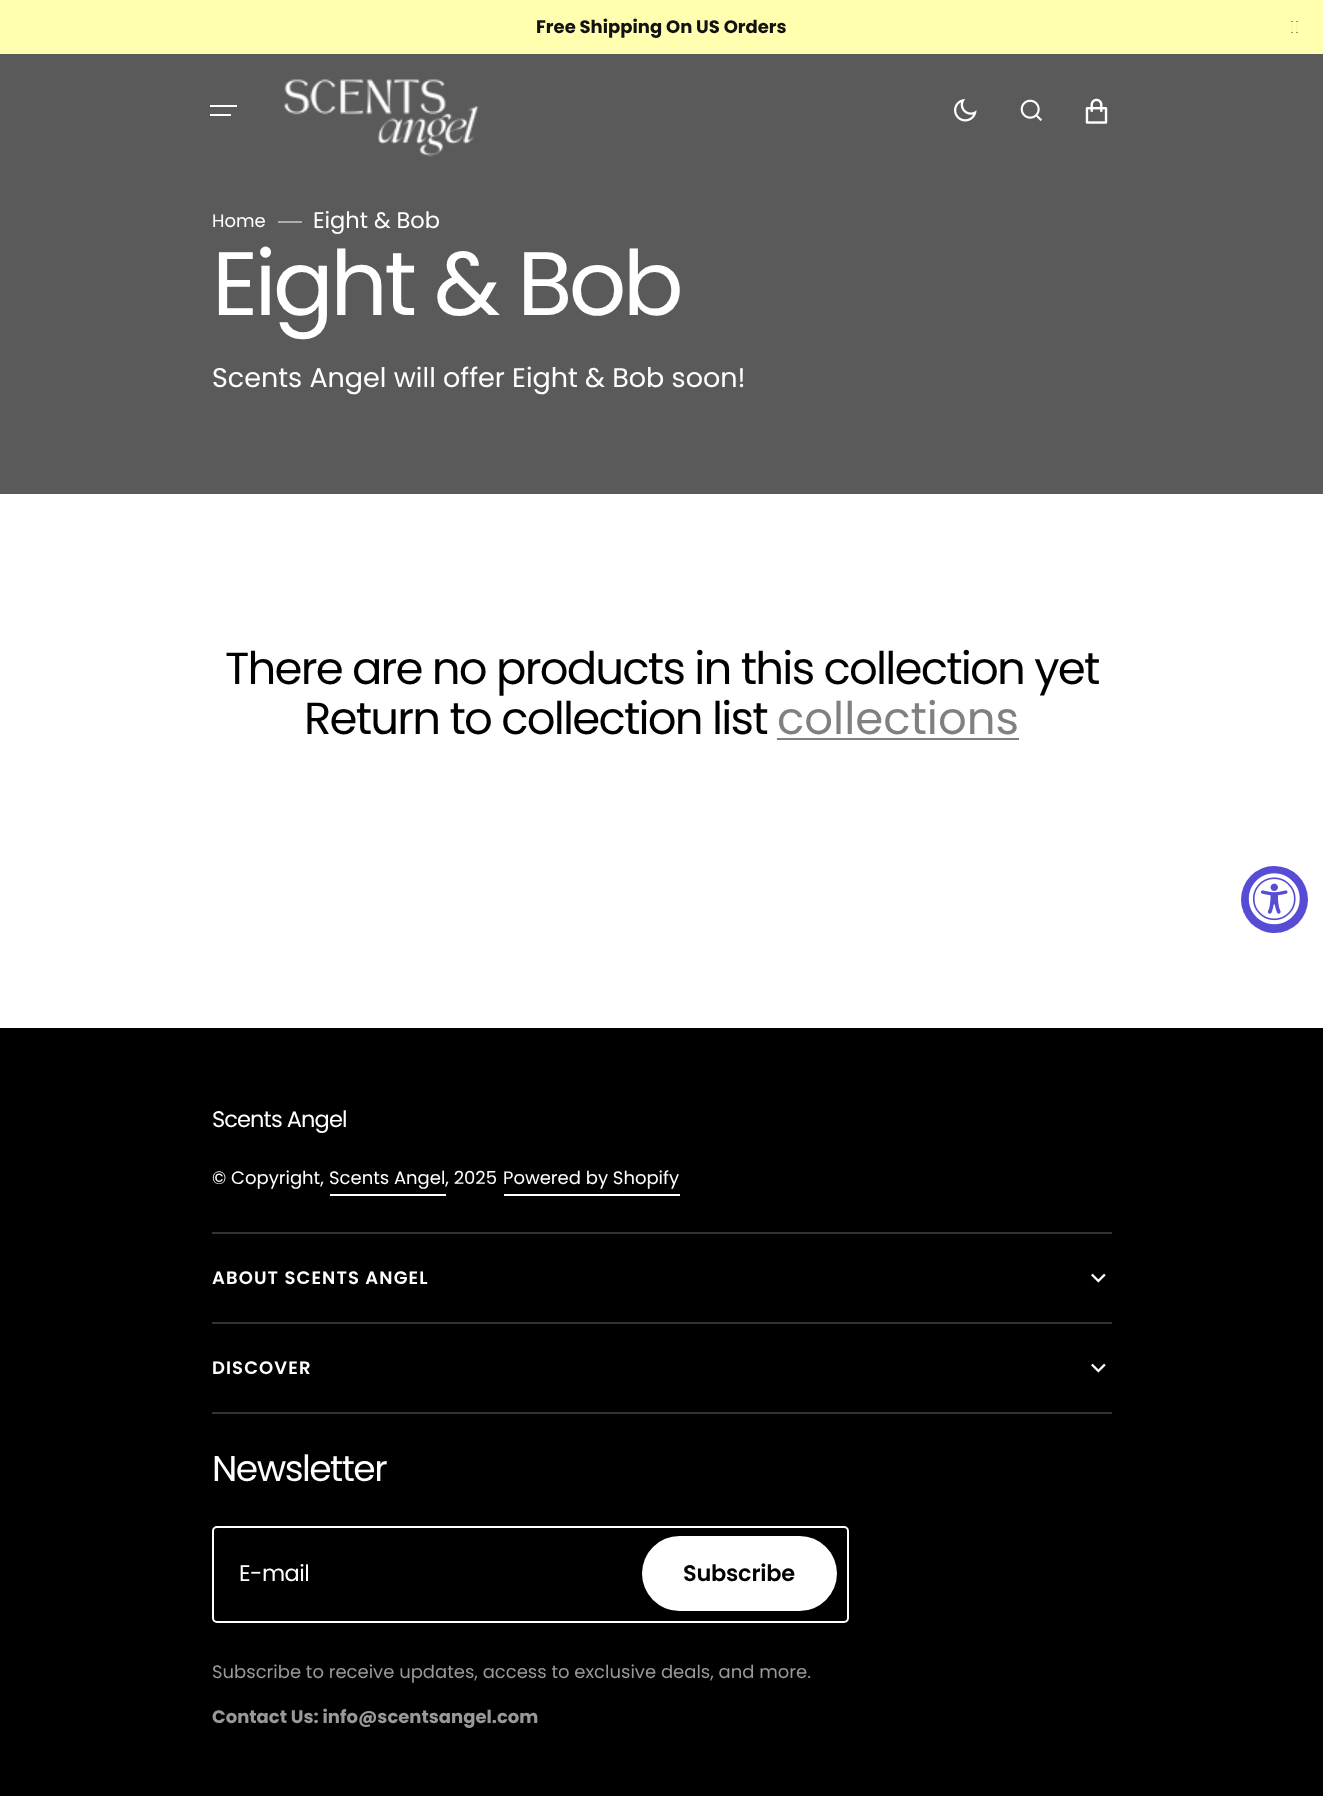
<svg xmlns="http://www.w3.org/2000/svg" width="1323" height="1796">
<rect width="100%" height="100%" fill="#fff"/>
<rect width="1323" height="54" fill="#ffffaf"/>
<text x="536" y="33" style="font-family:Poppins;font-size:18px;font-weight:bold;fill:#121212">Free Shipping On US Orders</text>
<image x="1291" y="21" width="7" height="12" href="media/1.png"/>
<rect y="54" width="1323" height="440" fill="#5a5a5a"/>
<rect x="210" y="105" width="27" height="2" fill="#fff"/>
<rect x="210" y="114" width="21" height="2" fill="#fff"/>
<image x="283" y="79" width="196" height="78" href="media/2.png"/>
<image x="954" y="99" width="23" height="23" href="media/3.png"/>
<image x="1020" y="99" width="22" height="22" href="media/4.png"/>
<image x="1085" y="98" width="23" height="26" href="media/5.png"/>
<text x="212" y="227" style="font-family:Poppins;font-size:18px;fill:#fff">Home</text>
<rect x="278" y="221" width="24" height="2" fill="#adadad"/>
<text x="313" y="228" style="font-family:Poppins;font-size:22.5px;fill:#fff">Eight &amp; Bob</text>
<text x="212" y="315" style="font-family:Poppins;font-size:90px;letter-spacing:-3.6px;fill:#fff">Eight &amp; Bob</text>
<text x="212" y="387" style="font-family:Poppins;font-size:27px;fill:#fff">Scents Angel will offer Eight &amp; Bob soon!</text>
<text x="225" y="684" style="font-family:Poppins;font-size:45px;letter-spacing:-1.8px;fill:#000">There are no products in this collection yet</text>
<text x="304" y="734" style="font-family:Poppins;font-size:45px;letter-spacing:-1.8px;fill:#000">Return to collection list</text>
<text x="777" y="734" style="font-family:Poppins;font-size:45px;fill:#808080">collections</text>
<rect x="777" y="738" width="242" height="2" fill="#808080"/>
<circle cx="1274.5" cy="899.5" r="33.5" fill="#574cd5"/>
<image x="1248" y="873" width="52" height="52" href="media/6.png"/>
<rect y="1028" width="1323" height="768" fill="#000"/>
<text x="212" y="1127" style="font-family:Poppins;font-size:22.5px;letter-spacing:-0.9px;fill:#fff">Scents Angel</text>
<text x="212" y="1184" style="font-family:Poppins;font-size:18px;fill:#fff">© Copyright,</text>
<text x="329" y="1184" style="font-family:Poppins;font-size:18px;fill:#fff">Scents Angel, 2025</text>
<rect x="330" y="1194" width="116" height="2" fill="#fff"/>
<text x="503" y="1184" style="font-family:Poppins;font-size:18px;fill:#fff">Powered by Shopify</text>
<rect x="504" y="1194" width="176" height="2" fill="#fff"/>
<rect x="212" y="1232" width="900" height="2" fill="#333"/>
<rect x="212" y="1322" width="900" height="2" fill="#333"/>
<text x="212" y="1284" style="font-family:Poppins;font-size:18px;font-weight:600;letter-spacing:1.1px;fill:#fff">ABOUT SCENTS ANGEL</text>
<image x="1091" y="1273" width="15" height="10" href="media/7.png"/>
<rect x="212" y="1412" width="900" height="2" fill="#333"/>
<text x="212" y="1374" style="font-family:Poppins;font-size:18px;font-weight:600;letter-spacing:1.1px;fill:#fff">DISCOVER</text>
<image x="1091" y="1363" width="15" height="10" href="media/7.png"/>
<text x="212" y="1481" style="font-family:Poppins;font-size:36px;letter-spacing:-1.5px;fill:#fff">Newsletter</text>
<rect x="213" y="1527" width="635" height="95" rx="4" fill="none" stroke="#fff" stroke-width="2"/>
<text x="239" y="1581" style="font-family:Poppins;font-size:22.5px;letter-spacing:-0.5px;fill:#fff">E-mail</text>
<rect x="642" y="1536" width="195" height="75" rx="37.5" fill="#fff"/>
<text x="683" y="1581" style="font-family:Poppins;font-size:22.5px;font-weight:600;letter-spacing:-0.25px;fill:#000">Subscribe</text>
<text x="212" y="1678" style="font-family:Poppins;font-size:18px;fill:#999">Subscribe to receive updates, access to exclusive deals, and more.</text>
<text x="212" y="1723" style="font-family:Poppins;font-size:18px;font-weight:bold;fill:#999">Contact Us: info@scentsangel.com</text>
</svg>
